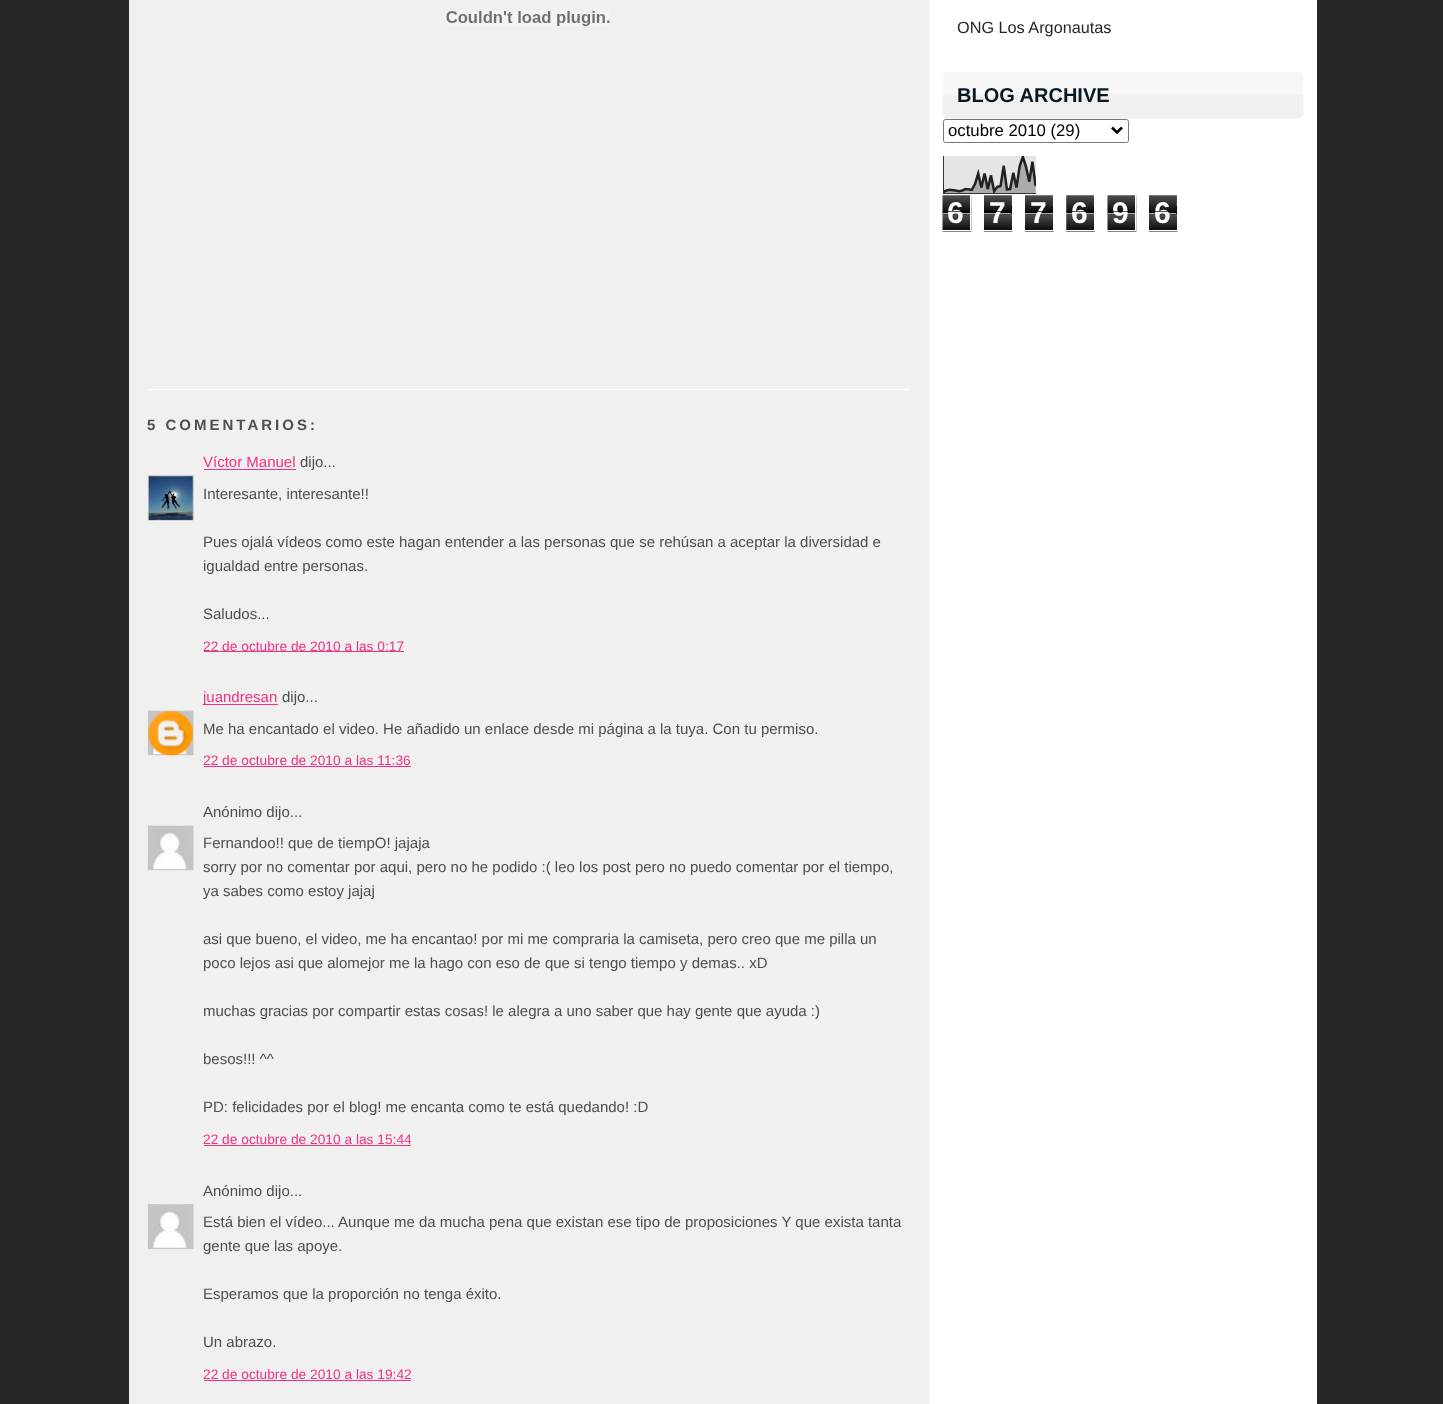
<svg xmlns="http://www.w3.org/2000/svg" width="1443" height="1404">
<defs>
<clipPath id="clip1"><rect x="148" y="475" width="46" height="45"/></clipPath>
</defs>
<rect width="100%" height="100%" fill="#242628"/>
<rect x="129" width="800" height="1404" fill="#f0f0f0"/>
<rect x="929" width="388" height="1404" fill="#fff"/>
<text x="957" y="33" style="font-family:Liberation Sans;font-size:16.25px;fill:#242628">ONG Los Argonautas</text>
<image x="942" y="72" width="362" height="47" href="media/1.png"/>
<text x="957" y="102" style="font-family:Liberation Sans;font-size:20px;font-weight:bold;fill:#081823">BLOG ARCHIVE</text>
<rect x="943.5" y="119.5" width="185" height="23" rx="2" fill="none" stroke="#767676"/>
<path d="M1112 127.5l5 5l5-5" fill="none" stroke="#000" stroke-width="2.5"/>
<text x="948" y="136" style="font-family:Liberation Sans;font-size:16.75px;fill:#000">octubre 2010 (29)</text>
<image x="943" y="156" width="93" height="38" href="media/2.png"/>
<image x="942" y="195" width="30" height="37" href="media/3.png"/>
<rect x="941.5" y="194.5" width="29" height="36" fill="none" stroke="#fff"/>
<text x="947" y="223" style="font-family:Liberation Sans;font-size:30px;font-weight:bold;fill:#fff">6</text>
<rect x="943" y="211" width="27" height="1" fill="#000000a6"/>
<rect x="943" y="213" width="27" height="1" fill="#ffffffa6"/>
<image x="983" y="195" width="30" height="37" href="media/4.png"/>
<rect x="983.5" y="194.5" width="29" height="36" fill="none" stroke="#fff"/>
<text x="989" y="223" style="font-family:Liberation Sans;font-size:30px;font-weight:bold;fill:#fff">7</text>
<rect x="984" y="211" width="27" height="1" fill="#000000a6"/>
<rect x="984" y="213" width="27" height="1" fill="#ffffffa6"/>
<image x="1025" y="195" width="29" height="37" href="media/5.png"/>
<rect x="1024.5" y="194.5" width="29" height="36" fill="none" stroke="#fff"/>
<text x="1030" y="223" style="font-family:Liberation Sans;font-size:30px;font-weight:bold;fill:#fff">7</text>
<rect x="1025" y="211" width="28" height="1" fill="#000000a6"/>
<rect x="1025" y="213" width="28" height="1" fill="#ffffffa6"/>
<image x="1066" y="195" width="29" height="37" href="media/6.png"/>
<rect x="1065.5" y="194.5" width="29" height="36" fill="none" stroke="#fff"/>
<text x="1071" y="223" style="font-family:Liberation Sans;font-size:30px;font-weight:bold;fill:#fff">6</text>
<rect x="1066" y="211" width="28" height="1" fill="#000000a6"/>
<rect x="1066" y="213" width="28" height="1" fill="#ffffffa6"/>
<image x="1107" y="195" width="30" height="37" href="media/3.png"/>
<rect x="1106.5" y="194.5" width="29" height="36" fill="none" stroke="#fff"/>
<text x="1112" y="223" style="font-family:Liberation Sans;font-size:30px;font-weight:bold;fill:#fff">9</text>
<rect x="1108" y="211" width="27" height="1" fill="#000000a6"/>
<rect x="1108" y="213" width="27" height="1" fill="#ffffffa6"/>
<image x="1148" y="195" width="30" height="37" href="media/4.png"/>
<rect x="1148.5" y="194.5" width="29" height="36" fill="none" stroke="#fff"/>
<text x="1154" y="223" style="font-family:Liberation Sans;font-size:30px;font-weight:bold;fill:#fff">6</text>
<rect x="1149" y="211" width="27" height="1" fill="#000000a6"/>
<rect x="1149" y="213" width="27" height="1" fill="#ffffffa6"/>
<rect x="148" y="389" width="762" height="1" fill="#fefefe"/>
<image x="446" y="11" width="164" height="15" href="media/7.png"/>
<text x="147" y="430" style="font-family:Liberation Sans;font-size:15px;font-weight:bold;letter-spacing:3px;fill:#504d4d">5 COMENTARIOS:</text>
<text x="203" y="467" style="font-family:Liberation Sans;font-size:15px;fill:#f23183">Víctor Manuel</text>
<rect x="204" y="469" width="92" height="1" fill="#f23183"/>
<text x="300" y="467" style="font-family:Liberation Sans;font-size:15px;fill:#504d4d">dijo...</text>
<image x="147" y="475" width="47" height="46" href="media/8.png"/>
<g clip-path="url(#clip1)">
<rect x="148.5" y="475.5" width="45" height="45" fill="none" stroke="#ccc"/>
</g>
<image x="148" y="476" width="45" height="45" href="media/9.png"/>
<text x="203" y="499" style="font-family:Liberation Sans;font-size:15px;fill:#504d4d">Interesante, interesante!!</text>
<text x="203" y="547" style="font-family:Liberation Sans;font-size:15px;fill:#504d4d">Pues ojalá vídeos como este hagan entender a las personas que se rehúsan a aceptar la diversidad e</text>
<text x="203" y="571" style="font-family:Liberation Sans;font-size:15px;fill:#504d4d">igualdad entre personas.</text>
<text x="203" y="619" style="font-family:Liberation Sans;font-size:15px;fill:#504d4d">Saludos...</text>
<rect x="204" y="651" width="200" height="1" fill="#f23183"/>
<text x="203" y="651" style="font-family:Liberation Sans;font-size:13.75px;fill:#f23183">22 de octubre de 2010 a las 0:17</text>
<rect x="204" y="704" width="74" height="1" fill="#f23183"/>
<text x="203" y="702" style="font-family:Liberation Sans;font-size:15px;fill:#f23183">juandresan</text>
<text x="282" y="702" style="font-family:Liberation Sans;font-size:15px;fill:#504d4d">dijo...</text>
<image x="147" y="710" width="47" height="46" href="media/10.png"/>
<image x="148" y="711" width="45" height="45" href="media/11.png"/>
<text x="203" y="734" style="font-family:Liberation Sans;font-size:15px;fill:#504d4d">Me ha encantado el video. He añadido un enlace desde mi página a la tuya. Con tu permiso.</text>
<text x="203" y="765" style="font-family:Liberation Sans;font-size:13.75px;fill:#f23183">22 de octubre de 2010 a las 11:36</text>
<rect x="204" y="766" width="207" height="1" fill="#f23183"/>
<text x="203" y="817" style="font-family:Liberation Sans;font-size:15px;fill:#504d4d">Anónimo dijo...</text>
<image x="147" y="825" width="47" height="46" href="media/12.png"/>
<text x="203" y="848" style="font-family:Liberation Sans;font-size:15px;fill:#504d4d">Fernandoo!! que de tiempO! jajaja</text>
<text x="203" y="872" style="font-family:Liberation Sans;font-size:15px;fill:#504d4d">sorry por no comentar por aqui, pero no he podido :( leo los post pero no puedo comentar por el tiempo,</text>
<text x="203" y="896" style="font-family:Liberation Sans;font-size:15px;fill:#504d4d">ya sabes como estoy jajaj</text>
<text x="203" y="944" style="font-family:Liberation Sans;font-size:15px;fill:#504d4d">asi que bueno, el video, me ha encantao! por mi me compraria la camiseta, pero creo que me pilla un</text>
<text x="203" y="968" style="font-family:Liberation Sans;font-size:15px;fill:#504d4d">poco lejos asi que alomejor me la hago con eso de que si tengo tiempo y demas.. xD</text>
<text x="203" y="1016" style="font-family:Liberation Sans;font-size:15px;fill:#504d4d">muchas gracias por compartir estas cosas! le alegra a uno saber que hay gente que ayuda :)</text>
<text x="203" y="1064" style="font-family:Liberation Sans;font-size:15px;fill:#504d4d">besos!!! ^^</text>
<text x="203" y="1112" style="font-family:Liberation Sans;font-size:15px;fill:#504d4d">PD: felicidades por el blog! me encanta como te está quedando! :D</text>
<text x="203" y="1144" style="font-family:Liberation Sans;font-size:13.75px;fill:#f23183">22 de octubre de 2010 a las 15:44</text>
<rect x="204" y="1145" width="207" height="1" fill="#f23183"/>
<text x="203" y="1196" style="font-family:Liberation Sans;font-size:15px;fill:#504d4d">Anónimo dijo...</text>
<image x="147" y="1204" width="47" height="45" href="media/13.png"/>
<text x="203" y="1227" style="font-family:Liberation Sans;font-size:15px;fill:#504d4d">Está bien el vídeo... Aunque me da mucha pena que existan ese tipo de proposiciones Y que exista tanta</text>
<text x="203" y="1251" style="font-family:Liberation Sans;font-size:15px;fill:#504d4d">gente que las apoye.</text>
<text x="203" y="1299" style="font-family:Liberation Sans;font-size:15px;fill:#504d4d">Esperamos que la proporción no tenga éxito.</text>
<text x="203" y="1347" style="font-family:Liberation Sans;font-size:15px;fill:#504d4d">Un abrazo.</text>
<text x="203" y="1379" style="font-family:Liberation Sans;font-size:13.75px;fill:#f23183">22 de octubre de 2010 a las 19:42</text>
<rect x="204" y="1380" width="207" height="1" fill="#f23183"/>
</svg>
